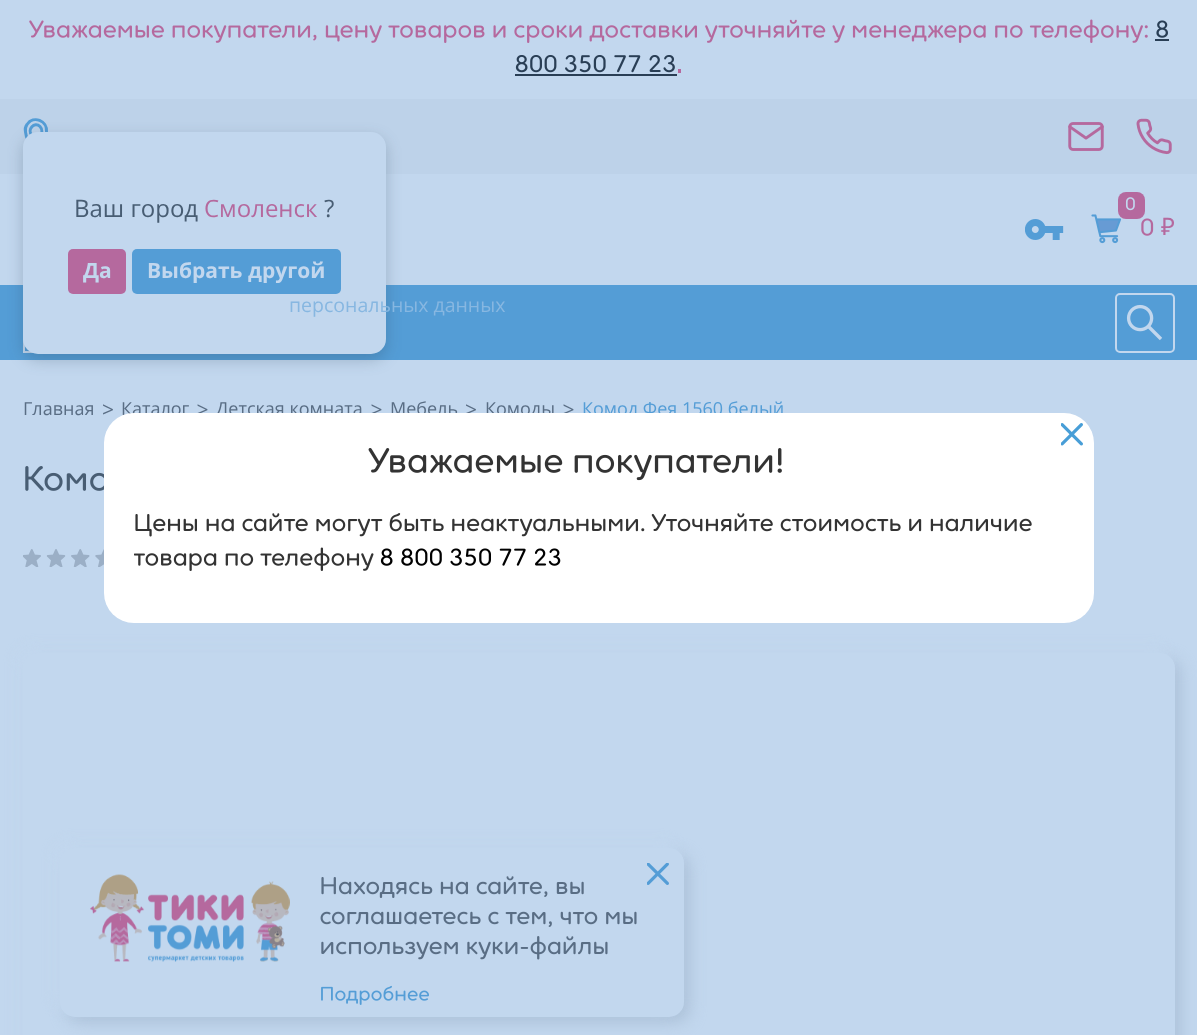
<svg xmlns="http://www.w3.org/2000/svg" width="1197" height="1035">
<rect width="100%" height="100%" fill="#c2d7ee"/>
<image x="29" y="19" width="1119" height="24" href="media/1.png"/>
<image x="1156" y="20" width="12" height="18" href="media/2.png"/>
<rect x="1155" y="39" width="14" height="2" fill="#293e55"/>
<image x="515" y="55" width="160" height="18" href="media/3.png"/>
<rect x="678" y="69" width="3" height="4" fill="#b5699e"/>
<rect x="515" y="74" width="162" height="2" fill="#293e55"/>
<rect y="99" width="1197" height="75" fill="#bdd2e9"/>
<path d="M36 152.5c-4.5-5.5-10-13.5-10.5-20.5c-.5-2.5 0-5.5 1.5-7.5c6.5-9.5 20.5-4 19.5 7.5c-.5 7-6 15-10.5 20.5zm-4-17c5.5 5.5 13.5-3 8-9c-5.5-5.5-13.5 3-8 9z" fill="none" stroke="#549dd6" stroke-width="3"/>
<image x="1068" y="122" width="36" height="29" href="media/4.png"/>
<image x="1136" y="118" width="36" height="37" href="media/5.png"/>
<rect y="285" width="1197" height="75" fill="#549dd6"/>
<rect x="24" y="294" width="259" height="58" fill="none" stroke="#c2d7ee" stroke-width="2"/>
<rect x="23" y="138" width="363" height="222" rx="15" fill="#293e5540" filter="blur(7.5px)"/>
<rect x="23" y="132" width="363" height="222" rx="15" fill="#c2d7ee"/>
<text x="74" y="217" style="font-family:Open Sans;font-size:24px;fill:#485d73">Ваш город</text>
<text x="204" y="217" style="font-family:Open Sans;font-size:24px;fill:#b5699e">Смоленск</text>
<text x="324" y="217" style="font-family:Open Sans;font-size:24px;fill:#485d73">?</text>
<rect x="68" y="249" width="58" height="45" rx="5" fill="#b5699e"/>
<text x="83" y="278" style="font-family:Open Sans;font-size:21px;font-weight:bold;fill:#c2d7ee">Да</text>
<rect x="132" y="249" width="209" height="45" rx="5" fill="#549dd6"/>
<text x="147" y="278" style="font-family:Open Sans;font-size:21px;font-weight:bold;fill:#c2d7ee">Выбрать другой</text>
<image x="1025" y="219" width="39" height="21" href="media/6.png"/>
<image x="1091" y="214" width="31" height="30" href="media/8.png"/>
<image x="1141" y="218" width="13" height="18" href="media/9.png"/>
<rect x="1118" y="192" width="27" height="27" rx="8" fill="#b5699e"/>
<image x="1125" y="197" width="10" height="14" href="media/7.png"/>
<text x="1161" y="235" style="font-family:Noto Sans;font-size:24px;fill:#b5699e">₽</text>
<rect x="1116" y="294" width="58" height="58" rx="4" fill="none" stroke="#c2d7ee" stroke-width="2"/>
<image x="1126" y="304" width="37" height="37" href="media/10.png"/>
<text x="289" y="312" style="font-family:Open Sans;font-size:19.5px;fill:#87b7e1">персональных данных</text>
<text x="23" y="415" style="font-family:Open Sans;font-size:18px;fill:#596d84">Главная</text>
<image x="103" y="404" width="10" height="11" href="media/11.png"/>
<text x="121" y="415" style="font-family:Open Sans;font-size:18px;fill:#596d84">Каталог</text>
<image x="197" y="404" width="11" height="9" href="media/12.png"/>
<text x="216" y="415" style="font-family:Open Sans;font-size:18px;fill:#596d84">Детская комната</text>
<image x="371" y="404" width="11" height="9" href="media/12.png"/>
<text x="390" y="415" style="font-family:Open Sans;font-size:18px;fill:#596d84">Мебель</text>
<image x="466" y="404" width="10" height="9" href="media/13.png"/>
<text x="485" y="415" style="font-family:Open Sans;font-size:18px;fill:#596d84">Комоды</text>
<image x="563" y="404" width="11" height="9" href="media/12.png"/>
<text x="582" y="415" style="font-family:Open Sans;font-size:18px;fill:#549dd6">Комод Фея 1560 белый</text>
<rect x="104" y="413" width="990" height="210" rx="30" fill="#fff"/>
<image x="1061" y="423" width="22" height="23" href="media/14.png"/>
<image x="368" y="448" width="414" height="33" href="media/15.png"/>
<image x="135" y="513" width="510" height="24" href="media/16.png"/>
<image x="651" y="513" width="381" height="19" href="media/17.png"/>
<image x="134" y="547" width="240" height="24" href="media/18.png"/>
<image x="380" y="548" width="181" height="18" href="media/19.png"/>
<image x="25" y="466" width="79" height="25" href="media/20.png"/>
<rect x="23" y="549" width="81" height="18" fill="#9bafc6"/>
<image x="23" y="549" width="81" height="18" href="media/21.png"/>
<rect x="29" y="659" width="1152" height="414" rx="15" fill="#abc0d7e6" filter="blur(7.5px)"/>
<rect x="17" y="647" width="1152" height="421" rx="15" fill="#c2d7eee6" filter="blur(6px)"/>
<rect x="23" y="653" width="1152" height="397" rx="15" fill="#c2d7ee"/>
<rect x="66" y="854" width="624" height="169" rx="15" fill="#abc0d7e6" filter="blur(7.5px)"/>
<rect x="54" y="842" width="624" height="169" rx="15" fill="#c2d7eee6" filter="blur(6px)"/>
<rect x="60" y="848" width="624" height="169" rx="15" fill="#c2d7ee"/>
<image x="90" y="874" width="200" height="88" href="media/22.png"/>
<image x="321" y="876" width="263" height="22" href="media/23.png"/>
<image x="320" y="911" width="317" height="16" href="media/24.png"/>
<image x="321" y="936" width="287" height="24" href="media/25.png"/>
<image x="321" y="985" width="108" height="20" href="media/26.png"/>
<image x="647" y="863" width="22" height="22" href="media/27.png"/>
</svg>
